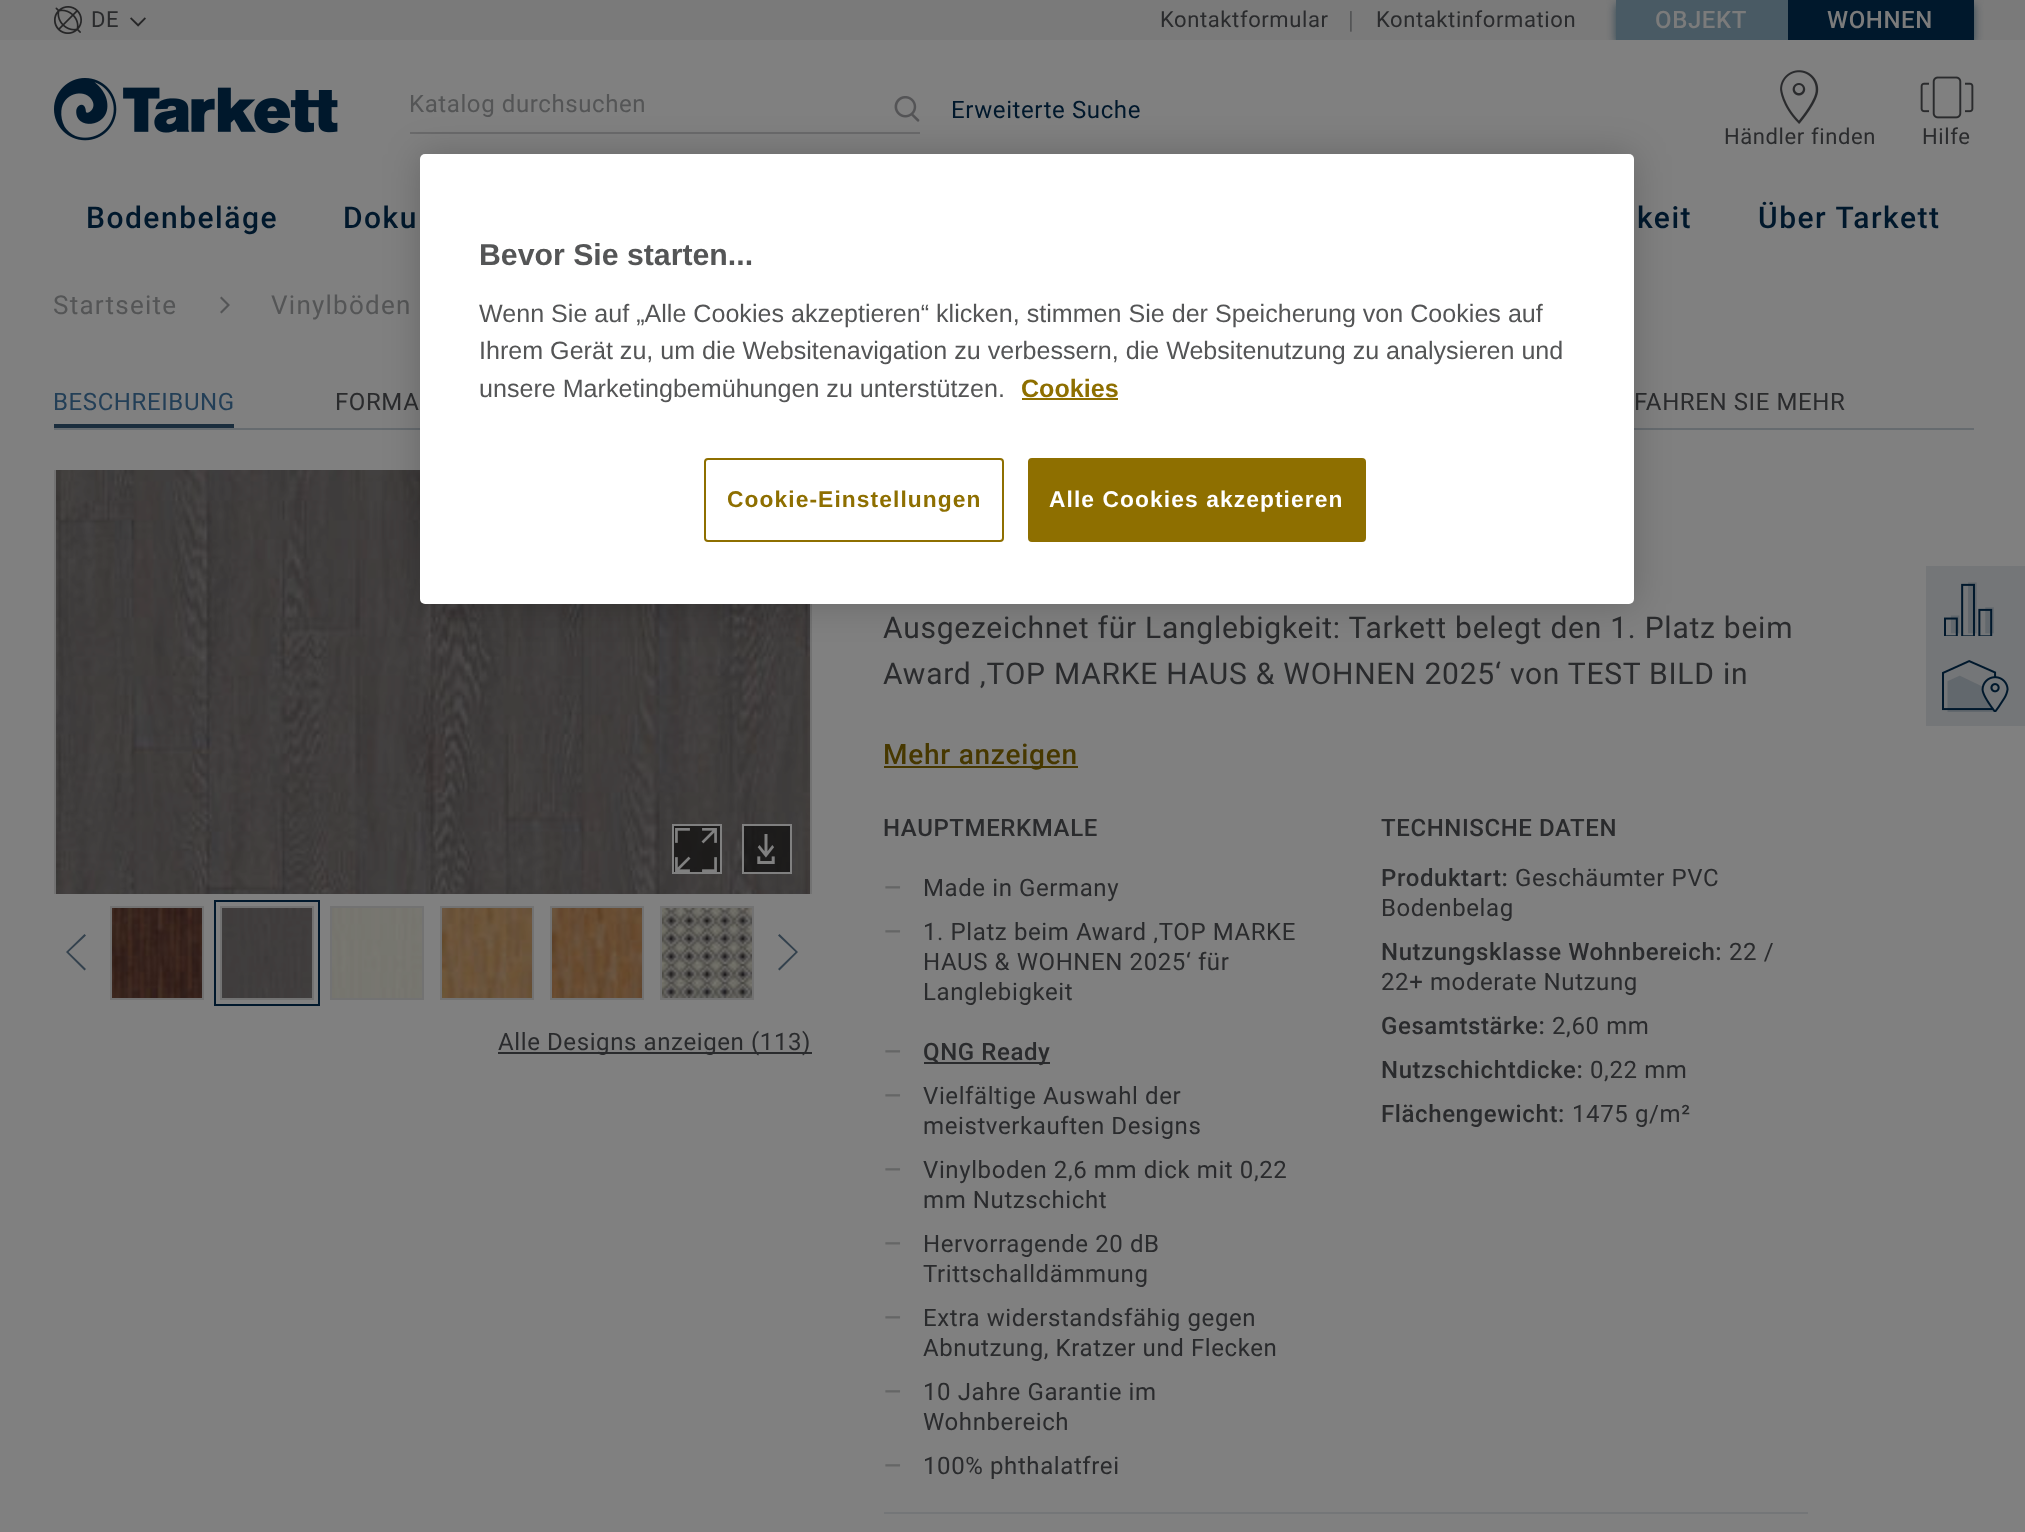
<svg xmlns="http://www.w3.org/2000/svg" width="2025" height="1532">
<defs>
<clipPath id="clip1"><rect x="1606" y="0" width="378" height="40"/></clipPath>
</defs>
<rect width="100%" height="100%" fill="#808080"/>
<rect width="2025" height="40" fill="#7a7a7a"/>
<image x="54" y="6" width="28" height="28" href="media/1.png"/>
<text x="91" y="27" style="font-family:Roboto;font-size:22px;letter-spacing:0.6px;fill:#2a2b2d">DE</text>
<image x="130" y="17" width="16" height="10" href="media/2.png"/>
<text x="1160" y="27" style="font-family:Roboto;font-size:22px;letter-spacing:0.6px;fill:#2a2b2d">Kontaktformular</text>
<text x="1348" y="27" style="font-family:Liberation Sans;font-size:22px;letter-spacing:2px;fill:#545556">|</text>
<text x="1376" y="27" style="font-family:Roboto;font-size:22px;letter-spacing:0.6px;fill:#2a2b2d">Kontaktinformation</text>
<g clip-path="url(#clip1)">
<rect x="1616" y="4" width="358" height="40" fill="#314754" filter="blur(5px)"/>
</g>
<rect x="1616" width="172" height="40" fill="#495a64"/>
<text x="1655" y="28" style="font-family:Roboto;font-size:24px;font-weight:500;letter-spacing:0.6px;fill:#7b7b7b">OBJEKT</text>
<rect x="1788" width="186" height="40" fill="#00182c"/>
<text x="1827" y="28" style="font-family:Roboto;font-size:24px;font-weight:500;letter-spacing:0.6px;fill:#7b7b7b">WOHNEN</text>
<image x="54" y="78" width="284" height="63" href="media/3.png"/>
<rect x="410" y="132" width="510" height="2" fill="#6a6a6b"/>
<text x="409" y="112" style="font-family:Roboto;font-size:24px;letter-spacing:0.6px;fill:#545556">Katalog durchsuchen</text>
<image x="894" y="96" width="26" height="26" href="media/4.png"/>
<text x="951" y="118" style="font-family:Roboto;font-size:24px;letter-spacing:0.6px;fill:#00182c">Erweiterte Suche</text>
<image x="1780" y="70" width="39" height="54" href="media/5.png"/>
<text x="1724" y="144" style="font-family:Roboto;font-size:22px;letter-spacing:0.6px;fill:#2a2b2d">Händler finden</text>
<image x="1920" y="76" width="54" height="43" href="media/6.png"/>
<text x="1922" y="144" style="font-family:Roboto;font-size:22px;letter-spacing:0.6px;fill:#2a2b2d">Hilfe</text>
<text x="86" y="228" style="font-family:Roboto;font-size:30px;font-weight:500;letter-spacing:1.5px;fill:#00182c">Bodenbeläge</text>
<text x="343" y="228" style="font-family:Roboto;font-size:30px;font-weight:500;letter-spacing:1.5px;fill:#00182c">Doku</text>
<text x="1637" y="228" style="font-family:Roboto;font-size:30px;font-weight:500;letter-spacing:1.5px;fill:#00182c">keit</text>
<text x="1758" y="228" style="font-family:Roboto;font-size:30px;font-weight:500;letter-spacing:1.5px;fill:#00182c">Über Tarkett</text>
<text x="53" y="314" style="font-family:Roboto;font-size:26px;letter-spacing:1.25px;fill:#545556">Startseite</text>
<path d="M221.5 313.5l-1.5-1.5l7-7l-7-7l1.5-1.5l8.5 8.5z" fill="#545556"/>
<text x="271" y="314" style="font-family:Roboto;font-size:26px;letter-spacing:1.25px;fill:#545556">Vinylböden</text>
<rect x="54" y="424" width="180" height="4" fill="#1a2d3d"/>
<text x="53" y="410" style="font-family:Roboto;font-size:24px;letter-spacing:0.6px;fill:#233f57">BESCHREIBUNG</text>
<text x="335" y="410" style="font-family:Roboto;font-size:24px;letter-spacing:0.6px;fill:#2a2b2d">FORMA</text>
<text x="1634" y="410" style="font-family:Roboto;font-size:24px;letter-spacing:0.6px;fill:#2a2b2d">FAHREN SIE MEHR</text>
<rect x="54" y="428" width="1920" height="2" fill="#666b6f"/>
<rect x="55" y="471" width="756" height="422" fill="none" stroke="#727272" stroke-width="2"/>
<image x="56" y="470" width="754" height="424" href="media/7.png"/>
<rect x="673" y="825" width="48" height="48" fill="#0000008c" stroke="#808080" stroke-width="2"/>
<image x="675" y="828" width="42" height="44" href="media/8.png"/>
<rect x="743" y="825" width="48" height="48" fill="#0000008c" stroke="#808080" stroke-width="2"/>
<image x="757" y="834" width="18" height="30" href="media/9.png"/>
<path d="M66 952l18.5-18l1.5 1.5l-17.5 16.5l17.5 17l-1.5 1.5z" fill="#33414d" fill-rule="evenodd"/>
<rect x="111" y="907" width="92" height="92" fill="none" stroke="#727272" stroke-width="2"/>
<image x="112" y="908" width="90" height="90" href="media/10.png"/>
<rect x="215" y="901" width="104" height="104" fill="none" stroke="#00182c" stroke-width="2"/>
<rect x="221" y="907" width="92" height="92" fill="none" stroke="#727272" stroke-width="2"/>
<image x="222" y="908" width="90" height="90" href="media/11.png"/>
<rect x="331" y="907" width="92" height="92" fill="none" stroke="#727272" stroke-width="2"/>
<image x="332" y="908" width="90" height="90" href="media/12.png"/>
<rect x="441" y="907" width="92" height="92" fill="none" stroke="#727272" stroke-width="2"/>
<image x="442" y="908" width="90" height="90" href="media/13.png"/>
<rect x="551" y="907" width="92" height="92" fill="none" stroke="#727272" stroke-width="2"/>
<image x="552" y="908" width="90" height="90" href="media/14.png"/>
<rect x="661" y="907" width="92" height="92" fill="none" stroke="#727272" stroke-width="2"/>
<image x="662" y="908" width="90" height="90" href="media/15.png"/>
<path d="M798 952l-18.5 18.5l-1.5-1.5l17.5-17l-17.5-16.5l1.5-1.5z" fill="#33414d" fill-rule="evenodd"/>
<rect x="498" y="1052" width="314" height="2" fill="#2a2b2d"/>
<text x="498" y="1050" style="font-family:Roboto;font-size:24px;letter-spacing:0.6px;fill:#2a2b2d">Alle Designs anzeigen (113)</text>
<text x="883" y="638" style="font-family:Roboto;font-size:30px;letter-spacing:0.75px;fill:#2a2b2d">Ausgezeichnet für Langlebigkeit: Tarkett belegt den 1. Platz beim</text>
<text x="883" y="684" style="font-family:Roboto;font-size:30px;letter-spacing:0.75px;fill:#2a2b2d">Award ‚TOP MARKE HAUS &amp; WOHNEN 2025‘ von TEST BILD in</text>
<rect x="884" y="766" width="194" height="2" fill="#473800"/>
<text x="883" y="764" style="font-family:Roboto;font-size:28px;font-weight:500;letter-spacing:0.75px;fill:#473800">Mehr anzeigen</text>
<text x="883" y="836" style="font-family:Roboto;font-size:24px;font-weight:500;letter-spacing:0.6px;fill:#2a2b2d">HAUPTMERKMALE</text>
<text x="883" y="898" style="font-family:Roboto;font-size:30px;letter-spacing:0.6px;fill:#656666">–</text>
<text x="923" y="896" style="font-family:Roboto;font-size:24px;letter-spacing:0.6px;fill:#2a2b2d">Made in Germany</text>
<text x="883" y="942" style="font-family:Roboto;font-size:30px;letter-spacing:0.6px;fill:#656666">–</text>
<text x="923" y="940" style="font-family:Roboto;font-size:24px;letter-spacing:0.6px;fill:#2a2b2d">1. Platz beim Award ‚TOP MARKE</text>
<text x="923" y="970" style="font-family:Roboto;font-size:24px;letter-spacing:0.6px;fill:#2a2b2d">HAUS &amp; WOHNEN 2025‘ für</text>
<text x="923" y="1000" style="font-family:Roboto;font-size:24px;letter-spacing:0.6px;fill:#2a2b2d">Langlebigkeit</text>
<text x="883" y="1062" style="font-family:Roboto;font-size:30px;letter-spacing:0.6px;fill:#656666">–</text>
<rect x="924" y="1062" width="126" height="2" fill="#2a2b2d"/>
<text x="923" y="1060" style="font-family:Roboto;font-size:24px;font-weight:500;letter-spacing:0.6px;fill:#2a2b2d">QNG Ready</text>
<text x="883" y="1106" style="font-family:Roboto;font-size:30px;letter-spacing:0.6px;fill:#656666">–</text>
<text x="923" y="1104" style="font-family:Roboto;font-size:24px;letter-spacing:0.6px;fill:#2a2b2d">Vielfältige Auswahl der</text>
<text x="923" y="1134" style="font-family:Roboto;font-size:24px;letter-spacing:0.6px;fill:#2a2b2d">meistverkauften Designs</text>
<text x="883" y="1180" style="font-family:Roboto;font-size:30px;letter-spacing:0.6px;fill:#656666">–</text>
<text x="923" y="1178" style="font-family:Roboto;font-size:24px;letter-spacing:0.6px;fill:#2a2b2d">Vinylboden 2,6 mm dick mit 0,22</text>
<text x="923" y="1208" style="font-family:Roboto;font-size:24px;letter-spacing:0.6px;fill:#2a2b2d">mm Nutzschicht</text>
<text x="883" y="1254" style="font-family:Roboto;font-size:30px;letter-spacing:0.6px;fill:#656666">–</text>
<text x="923" y="1252" style="font-family:Roboto;font-size:24px;letter-spacing:0.6px;fill:#2a2b2d">Hervorragende 20 dB</text>
<text x="923" y="1282" style="font-family:Roboto;font-size:24px;letter-spacing:0.6px;fill:#2a2b2d">Trittschalldämmung</text>
<text x="883" y="1328" style="font-family:Roboto;font-size:30px;letter-spacing:0.6px;fill:#656666">–</text>
<text x="923" y="1326" style="font-family:Roboto;font-size:24px;letter-spacing:0.6px;fill:#2a2b2d">Extra widerstandsfähig gegen</text>
<text x="923" y="1356" style="font-family:Roboto;font-size:24px;letter-spacing:0.6px;fill:#2a2b2d">Abnutzung, Kratzer und Flecken</text>
<text x="883" y="1402" style="font-family:Roboto;font-size:30px;letter-spacing:0.6px;fill:#656666">–</text>
<text x="923" y="1400" style="font-family:Roboto;font-size:24px;letter-spacing:0.6px;fill:#2a2b2d">10 Jahre Garantie im</text>
<text x="923" y="1430" style="font-family:Roboto;font-size:24px;letter-spacing:0.6px;fill:#2a2b2d">Wohnbereich</text>
<text x="883" y="1476" style="font-family:Roboto;font-size:30px;letter-spacing:0.6px;fill:#656666">–</text>
<text x="923" y="1474" style="font-family:Roboto;font-size:24px;letter-spacing:0.6px;fill:#2a2b2d">100% phthalatfrei</text>
<text x="1381" y="836" style="font-family:Roboto;font-size:24px;font-weight:500;letter-spacing:0.6px;fill:#2a2b2d">TECHNISCHE DATEN</text>
<text x="1381" y="886" style="font-family:Roboto;font-size:24px;font-weight:500;letter-spacing:0.6px;fill:#2a2b2d">Produktart:</text>
<text x="1515" y="886" style="font-family:Roboto;font-size:24px;letter-spacing:0.6px;fill:#2a2b2d">Geschäumter PVC</text>
<text x="1381" y="916" style="font-family:Roboto;font-size:24px;letter-spacing:0.6px;fill:#2a2b2d">Bodenbelag</text>
<text x="1381" y="960" style="font-family:Roboto;font-size:24px;font-weight:500;letter-spacing:0.6px;fill:#2a2b2d">Nutzungsklasse Wohnbereich:</text>
<text x="1729" y="960" style="font-family:Roboto;font-size:24px;letter-spacing:0.6px;fill:#2a2b2d">22 /</text>
<text x="1381" y="990" style="font-family:Roboto;font-size:24px;letter-spacing:0.6px;fill:#2a2b2d">22+ moderate Nutzung</text>
<text x="1381" y="1034" style="font-family:Roboto;font-size:24px;font-weight:500;letter-spacing:0.6px;fill:#2a2b2d">Gesamtstärke:</text>
<text x="1552" y="1034" style="font-family:Roboto;font-size:24px;letter-spacing:0.6px;fill:#2a2b2d">2,60 mm</text>
<text x="1381" y="1078" style="font-family:Roboto;font-size:24px;font-weight:500;letter-spacing:0.6px;fill:#2a2b2d">Nutzschichtdicke:</text>
<text x="1590" y="1078" style="font-family:Roboto;font-size:24px;letter-spacing:0.6px;fill:#2a2b2d">0,22 mm</text>
<text x="1381" y="1122" style="font-family:Roboto;font-size:24px;font-weight:500;letter-spacing:0.6px;fill:#2a2b2d">Flächengewicht:</text>
<text x="1572" y="1122" style="font-family:Roboto;font-size:24px;letter-spacing:0.6px;fill:#2a2b2d">1475 g/m²</text>
<rect x="884" y="1512" width="924" height="2" fill="#747678"/>
<rect x="1926" y="566" width="99" height="160" fill="#747678"/>
<image x="1944" y="582" width="50" height="54" href="media/16.png"/>
<image x="1942" y="660" width="67" height="52" href="media/17.png"/>
<rect x="420" y="154" width="1214" height="450" rx="5" fill="#00000033" filter="blur(18px)"/>
<rect x="420" y="154" width="1214" height="450" rx="5" fill="#fff"/>
<text x="479" y="265" style="font-family:Liberation Sans;font-size:30.25px;font-weight:bold;fill:#545556">Bevor Sie starten...</text>
<text x="479" y="322" style="font-family:Liberation Sans;font-size:25.1px;fill:#545556">Wenn Sie auf „Alle Cookies akzeptieren“ klicken, stimmen Sie der Speicherung von Cookies auf</text>
<text x="479" y="359" style="font-family:Liberation Sans;font-size:25.1px;fill:#545556">Ihrem Gerät zu, um die Websitenavigation zu verbessern, die Websitenutzung zu analysieren und</text>
<text x="479" y="397" style="font-family:Liberation Sans;font-size:25.1px;fill:#545556">unsere Marketingbemühungen zu unterstützen.</text>
<text x="1021" y="397" style="font-family:Liberation Sans;font-size:25.1px;font-weight:bold;fill:#8e6f00">Cookies</text>
<rect x="1022" y="398" width="96" height="2" fill="#8e6f00"/>
<rect x="705" y="459" width="298" height="82" rx="3" fill="none" stroke="#8e6f00" stroke-width="2"/>
<text x="727" y="507" style="font-family:Liberation Sans;font-size:22.75px;font-weight:bold;letter-spacing:1.1px;fill:#8e6f00">Cookie-Einstellungen</text>
<rect x="1029" y="459" width="336" height="82" rx="3" fill="#8e6f00" stroke="#8e6f00" stroke-width="2"/>
<text x="1049" y="507" style="font-family:Liberation Sans;font-size:22.75px;font-weight:bold;letter-spacing:1.1px;fill:#fff">Alle Cookies akzeptieren</text>
</svg>
